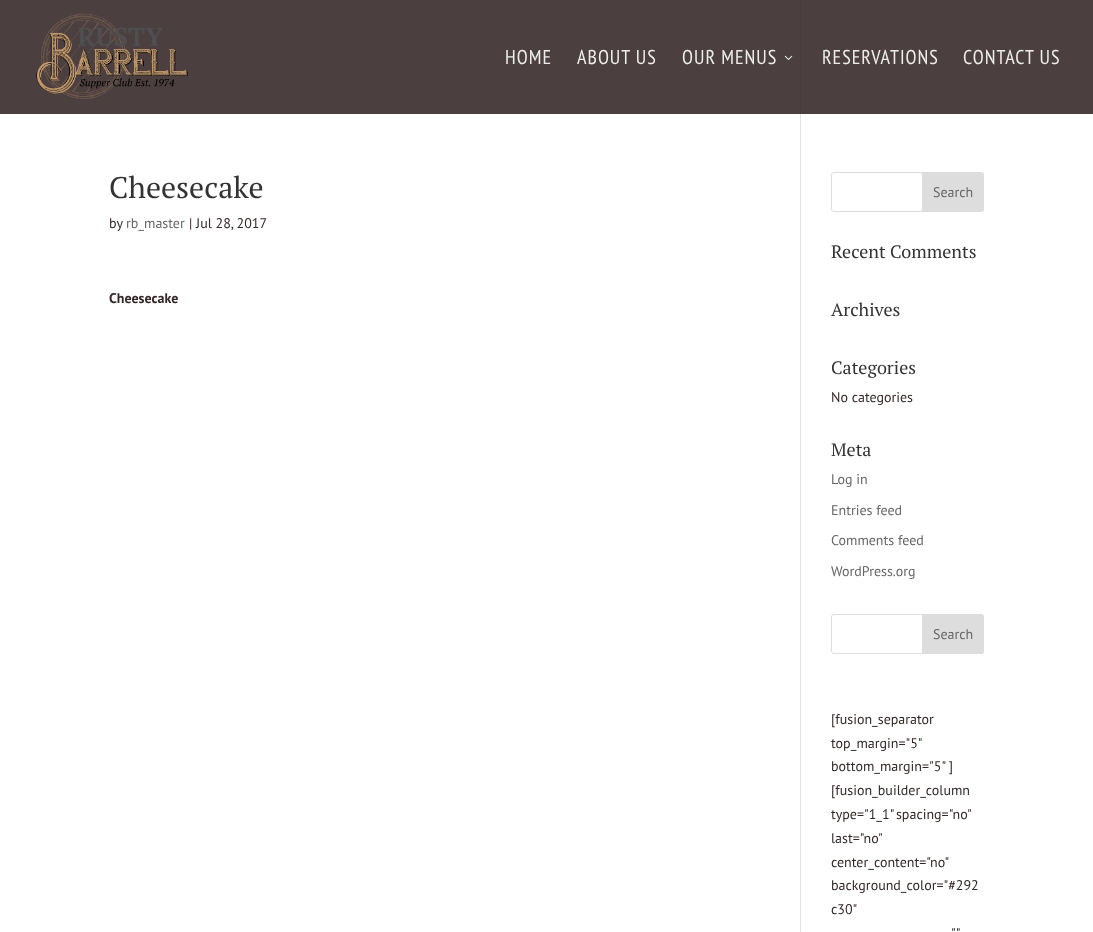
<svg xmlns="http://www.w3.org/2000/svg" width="1093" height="932">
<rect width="100%" height="100%" fill="#fff"/>
<rect width="1093" height="114" fill="#4b3f3f"/>
<image x="36" y="13" width="152" height="86" href="media/1.png"/>
<text x="505" y="64" style="font-family:PT Sans Narrow;font-size:20px;letter-spacing:1px;fill:#edecec">HOME</text>
<text x="577" y="64" style="font-family:PT Sans Narrow;font-size:20px;letter-spacing:1px;fill:#edecec">ABOUT US</text>
<text x="682" y="64" style="font-family:PT Sans Narrow;font-size:20px;letter-spacing:1px;fill:#edecec">OUR MENUS</text>
<image x="784" y="55" width="9" height="5" href="media/2.png"/>
<text x="822" y="64" style="font-family:PT Sans Narrow;font-size:20px;letter-spacing:1px;fill:#edecec">RESERVATIONS</text>
<text x="963" y="64" style="font-family:PT Sans Narrow;font-size:20px;letter-spacing:1px;fill:#edecec">CONTACT US</text>
<rect x="800" y="114" width="1" height="818" fill="#e2e2e2"/>
<rect x="800" width="1" height="114" fill="#483c3c"/>
<text x="109" y="198" style="font-family:PT Serif;font-size:30px;fill:#333">Cheesecake</text>
<text x="109" y="228" style="font-family:PT Sans;font-size:14px;fill:#352727">by</text>
<text x="126" y="228" style="font-family:PT Sans;font-size:14px;fill:#666">rb_master</text>
<text x="189" y="228" style="font-family:PT Sans;font-size:14px;fill:#352727">| Jul 28, 2017</text>
<text x="109" y="303" style="font-family:PT Sans;font-size:14px;font-weight:bold;fill:#352727">Cheesecake</text>
<rect x="831.5" y="172.5" width="152" height="39" rx="2.5" fill="none" stroke="#ddd"/>
<path d="M922.5 172.5h58.5c1.5 0 2.5 1 2.5 2.5v34c0 1.5-1 2.5-2.5 2.5h-58.5z" fill="#ddd" stroke="#ddd"/>
<text x="933" y="197" style="font-family:PT Sans;font-size:14px;fill:#666">Search</text>
<text x="831" y="258" style="font-family:PT Serif;font-size:18px;fill:#333">Recent Comments</text>
<text x="831" y="316" style="font-family:PT Serif;font-size:18px;fill:#333">Archives</text>
<text x="831" y="374" style="font-family:PT Serif;font-size:18px;fill:#333">Categories</text>
<text x="831" y="402" style="font-family:PT Sans;font-size:14px;fill:#352727">No categories</text>
<text x="831" y="456" style="font-family:PT Serif;font-size:18px;fill:#333">Meta</text>
<text x="831" y="484" style="font-family:PT Sans;font-size:14px;fill:#666">Log in</text>
<text x="831" y="515" style="font-family:PT Sans;font-size:14px;fill:#666">Entries feed</text>
<text x="831" y="545" style="font-family:PT Sans;font-size:14px;fill:#666">Comments feed</text>
<text x="831" y="576" style="font-family:PT Sans;font-size:14px;fill:#666">WordPress.org</text>
<rect x="831.5" y="614.5" width="152" height="39" rx="2.5" fill="none" stroke="#ddd"/>
<path d="M922.5 614.5h58.5c1.5 0 2.5 1 2.5 2.5v34c0 1.5-1 2.5-2.5 2.5h-58.5z" fill="#ddd" stroke="#ddd"/>
<text x="933" y="639" style="font-family:PT Sans;font-size:14px;fill:#666">Search</text>
<text x="831" y="724" style="font-family:PT Sans;font-size:14px;fill:#352727">[fusion_separator</text>
<text x="831" y="748" style="font-family:PT Sans;font-size:14px;fill:#352727">top_margin="5"</text>
<text x="831" y="771" style="font-family:PT Sans;font-size:14px;fill:#352727">bottom_margin="5" ]</text>
<text x="831" y="795" style="font-family:PT Sans;font-size:14px;fill:#352727">[fusion_builder_column</text>
<text x="831" y="819" word-spacing="-1" style="font-family:PT Sans;font-size:14px;fill:#352727">type="1_1" spacing="no"</text>
<text x="831" y="843" style="font-family:PT Sans;font-size:14px;fill:#352727">last="no"</text>
<text x="831" y="867" style="font-family:PT Sans;font-size:14px;fill:#352727">center_content="no"</text>
<text x="831" y="890" style="font-family:PT Sans;font-size:14px;fill:#352727">background_color="#292</text>
<text x="831" y="914" style="font-family:PT Sans;font-size:14px;fill:#352727">c30"</text>
<text x="951" y="938" style="font-family:PT Sans;font-size:14px;fill:#352727">""</text>
</svg>
